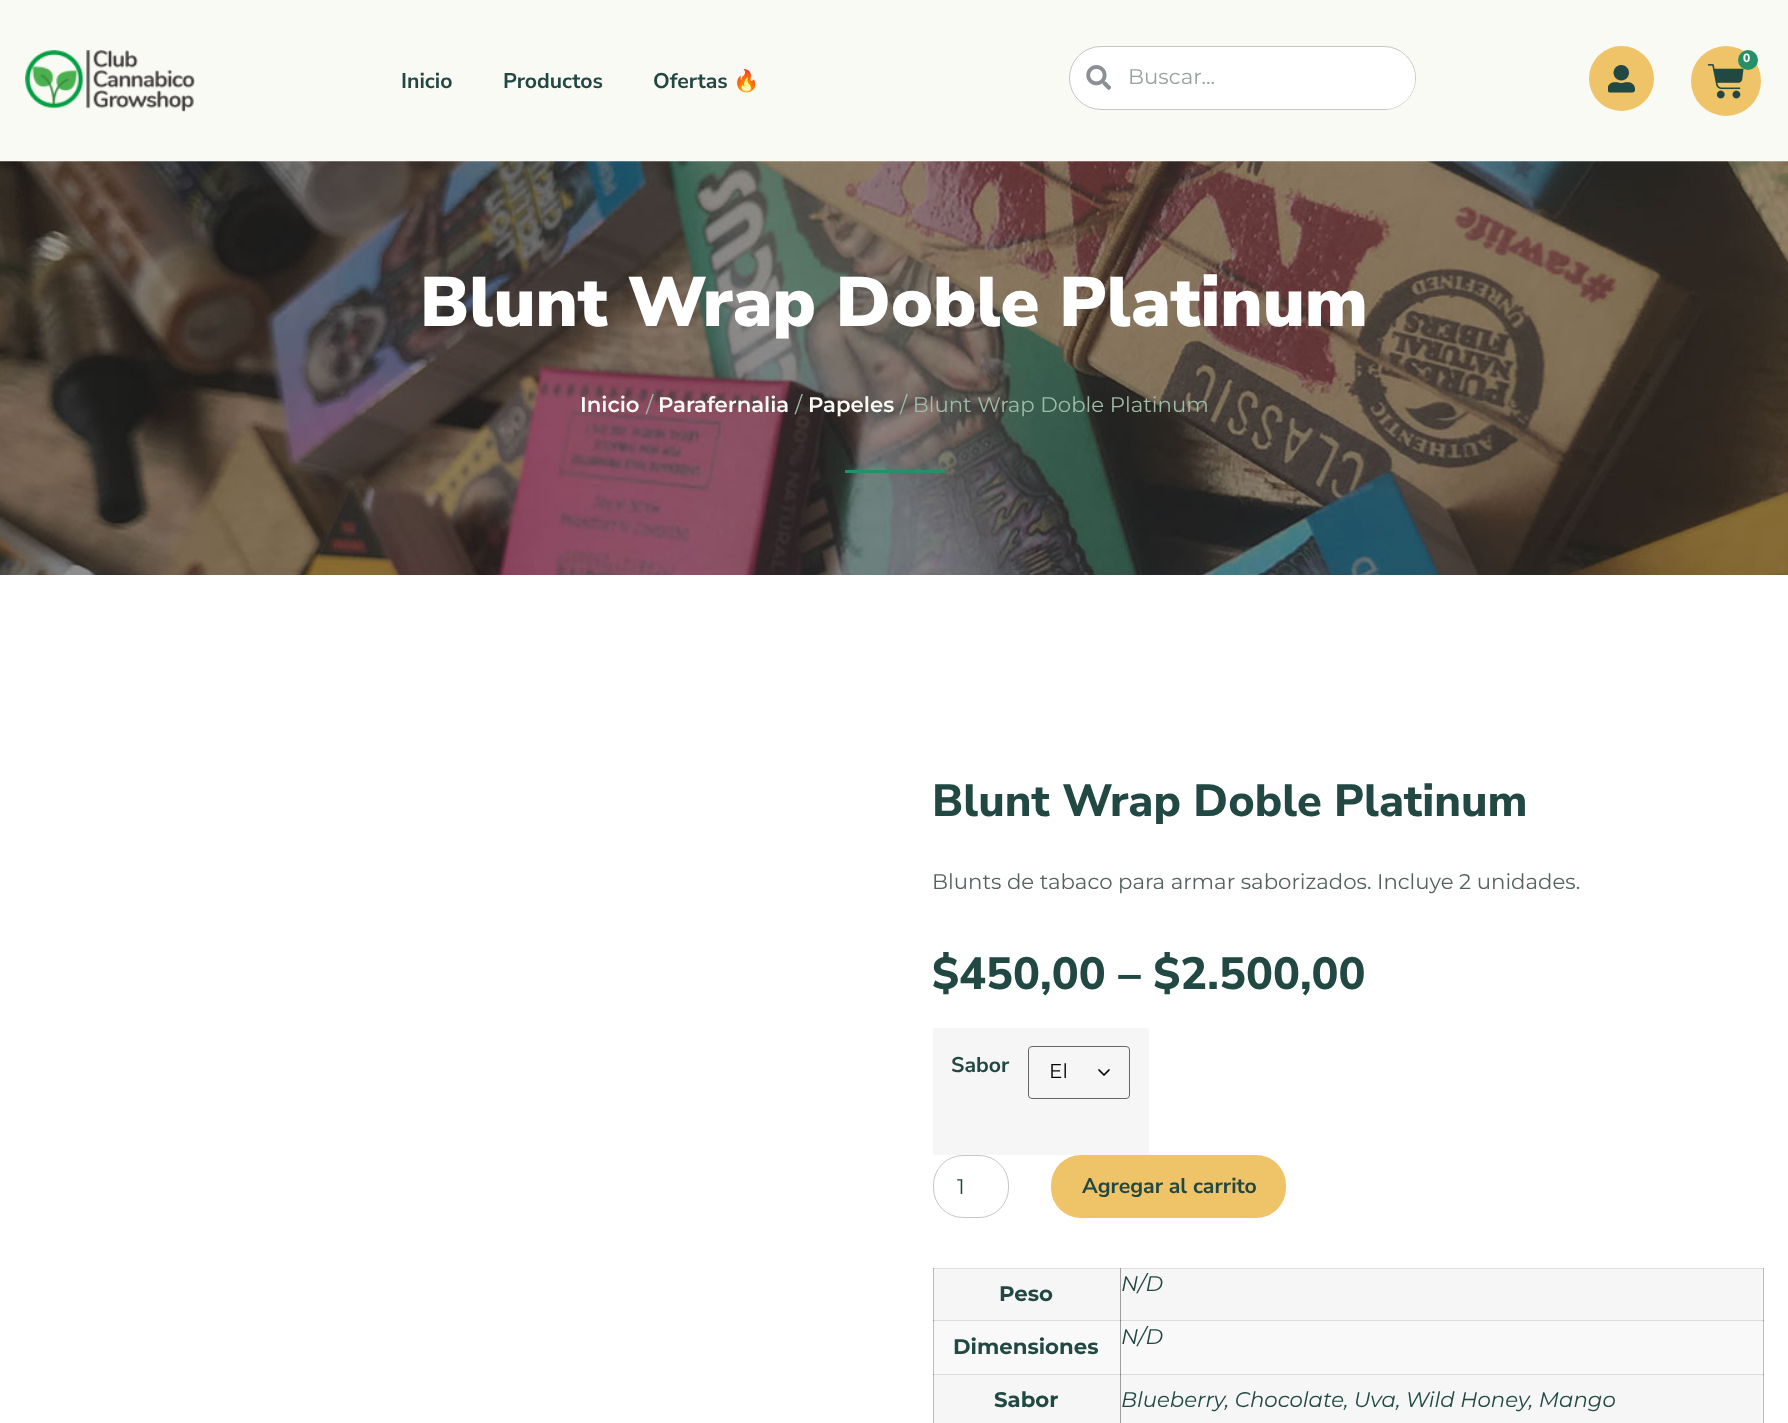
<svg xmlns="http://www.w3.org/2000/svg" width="1788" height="1423">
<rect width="100%" height="100%" fill="#fff"/>
<rect width="1788" height="161" fill="#fafaf5"/>
<image x="25" y="50" width="170" height="62" href="media/1.png"/>
<text x="401" y="88" style="font-family:Nunito Sans;font-size:21.25px;font-weight:bold;fill:#214842">Inicio</text>
<text x="503" y="88" style="font-family:Nunito Sans;font-size:21.25px;font-weight:bold;fill:#214842">Productos</text>
<text x="653" y="88" style="font-family:Nunito Sans;font-size:21.25px;font-weight:bold;fill:#214842">Ofertas</text>
<text x="733" y="88" style="font-family:Noto Color Emoji;font-size:21.25px;font-weight:bold;fill:#214842">🔥</text>
<circle cx="1621.5" cy="78.5" r="32.5" fill="#efc368"/>
<image x="1608" y="65" width="27" height="28" href="media/2.png"/>
<circle cx="1726" cy="81" r="35" fill="#efc368"/>
<image x="1708" y="64" width="36" height="35" href="media/3.png"/>
<circle cx="1748" cy="60" r="10" fill="#258f67"/>
<text x="1743" y="62" style="font-family:Nunito Sans;font-size:12px;font-weight:800;fill:#fff">0</text>
<rect x="1069.5" y="46.5" width="346" height="63" rx="31.5" fill="#fff" stroke="#c6c6c6"/>
<image x="1086" y="65" width="25" height="25" href="media/4.png"/>
<path d="M1141 48h243.5c17 0 30.5 13.5 30.5 30.5c0 17-13.5 30.5-30.5 30.5h-243.5c-16.5 0-30-13.5-30-30v-1c0-16.5 13.5-30 30-30z" fill="#fff"/>
<text x="1128" y="84" style="font-family:Montserrat;font-size:21.25px;fill:#99a1a0">Buscar...</text>
<image x="0" y="161" width="1788" height="414" href="media/5.png"/>
<text x="420" y="326" style="font-family:Nunito Sans;font-size:70px;font-weight:900;fill:#fff">Blunt Wrap Doble Platinum</text>
<text x="580" y="412" style="font-family:Montserrat;font-size:21.25px;font-weight:600;fill:#fafaf5">Inicio</text>
<text x="646" y="412" style="font-family:Montserrat;font-size:21.25px;fill:#9ebca6">/</text>
<text x="658" y="412" style="font-family:Montserrat;font-size:21.25px;font-weight:600;fill:#fafaf5">Parafernalia</text>
<text x="795" y="412" style="font-family:Montserrat;font-size:21.25px;fill:#9ebca6">/</text>
<text x="808" y="412" style="font-family:Montserrat;font-size:21.25px;font-weight:600;fill:#fafaf5">Papeles</text>
<text x="900" y="412" style="font-family:Montserrat;font-size:21.25px;fill:#9ebca6">/ Blunt Wrap Doble Platinum</text>
<rect x="845" y="470" width="100" height="3" fill="#258f67"/>
<text x="932" y="816" style="font-family:Nunito Sans;font-size:45px;font-weight:800;fill:#214842">Blunt Wrap Doble Platinum</text>
<text x="932" y="889" style="font-family:Montserrat;font-size:21.25px;fill:#556260">Blunts de tabaco para armar saborizados. Incluye 2 unidades.</text>
<text x="932" y="989" style="font-family:Nunito Sans;font-size:45px;font-weight:800;fill:#214842">$450,00 – $2.500,00</text>
<rect x="933" y="1028" width="216" height="127" fill="#f6f6f6"/>
<text x="951" y="1072" style="font-family:Nunito Sans;font-size:21.25px;font-weight:bold;fill:#214842">Sabor</text>
<path d="M1099 1070l5 5l5-5" fill="none" stroke="#000" stroke-width="1.7" stroke-linecap="round" stroke-linejoin="round"/>
<rect x="1028.5" y="1046.5" width="101" height="52" rx="3.5" fill="none" stroke="#666"/>
<text x="1049" y="1078" style="font-family:Montserrat;font-size:20px;fill:#000">El</text>
<rect x="933.5" y="1155.5" width="75" height="62" rx="29.5" fill="none" stroke="#c6c6c6"/>
<text x="957" y="1194" style="font-family:Montserrat;font-size:21.25px;fill:#214842">1</text>
<rect x="1051" y="1155" width="235" height="63" rx="30" fill="#efc368"/>
<text x="1082" y="1193" style="font-family:Nunito Sans;font-size:21.25px;font-weight:bold;fill:#214842">Agregar al carrito</text>
<rect x="933" y="1268" width="1" height="53" fill="#bbb"/>
<rect x="1120" y="1268" width="1" height="53" fill="#9e9e9e"/>
<rect x="1120" y="1320" width="644" height="1" fill="#ddd"/>
<rect x="1763" y="1268" width="1" height="53" fill="#bbb"/>
<rect x="933" y="1268" width="831" height="1" fill="#ddd"/>
<rect x="933" y="1268" width="1" height="1" fill="#afafaf"/>
<rect x="1120" y="1268" width="1" height="1" fill="#989898"/>
<rect x="1763" y="1268" width="1" height="1" fill="#afafaf"/>
<rect x="934" y="1269" width="186" height="51" fill="#f6f6f6"/>
<rect x="933" y="1320" width="187" height="1" fill="#ddd"/>
<rect x="933" y="1320" width="1" height="1" fill="#949494"/>
<text x="999" y="1301" style="font-family:Montserrat;font-size:21.25px;font-weight:bold;fill:#214842">Peso</text>
<rect x="1121" y="1269" width="642" height="51" fill="#f6f6f6"/>
<rect x="1120" y="1320" width="1" height="1" fill="#777"/>
<rect x="1763" y="1320" width="1" height="1" fill="#8e8e8e"/>
<text x="1121" y="1291" style="font-family:Montserrat;font-size:21.25px;font-style:italic;fill:#214842">N/D</text>
<rect x="934" y="1321" width="186" height="53" fill="#f9f9f9"/>
<rect x="933" y="1321" width="1" height="53" fill="#bdbdbd"/>
<text x="953" y="1354" style="font-family:Montserrat;font-size:21.25px;font-weight:bold;fill:#214842">Dimensiones</text>
<rect x="1121" y="1321" width="642" height="53" fill="#f9f9f9"/>
<rect x="1120" y="1321" width="1" height="53" fill="#9f9f9f"/>
<rect x="1763" y="1321" width="1" height="53" fill="#bdbdbd"/>
<text x="1121" y="1344" style="font-family:Montserrat;font-size:21.25px;font-style:italic;fill:#214842">N/D</text>
<rect x="934" y="1375" width="186" height="48" fill="#f6f6f6"/>
<rect x="933" y="1374" width="831" height="1" fill="#ddd"/>
<rect x="1120" y="1374" width="1" height="49" fill="#9e9e9e"/>
<rect x="1120" y="1374" width="1" height="1" fill="#777"/>
<rect x="933" y="1374" width="1" height="49" fill="#bbb"/>
<rect x="933" y="1374" width="1" height="1" fill="#949494"/>
<text x="994" y="1407" style="font-family:Montserrat;font-size:21.25px;font-weight:bold;fill:#214842">Sabor</text>
<rect x="1121" y="1375" width="642" height="48" fill="#f6f6f6"/>
<rect x="1763" y="1374" width="1" height="49" fill="#bbb"/>
<rect x="1763" y="1374" width="1" height="1" fill="#8e8e8e"/>
<text x="1121" y="1407" style="font-family:Montserrat;font-size:21.25px;font-style:italic;fill:#214842">Blueberry, Chocolate, Uva, Wild Honey, Mango</text>
</svg>
